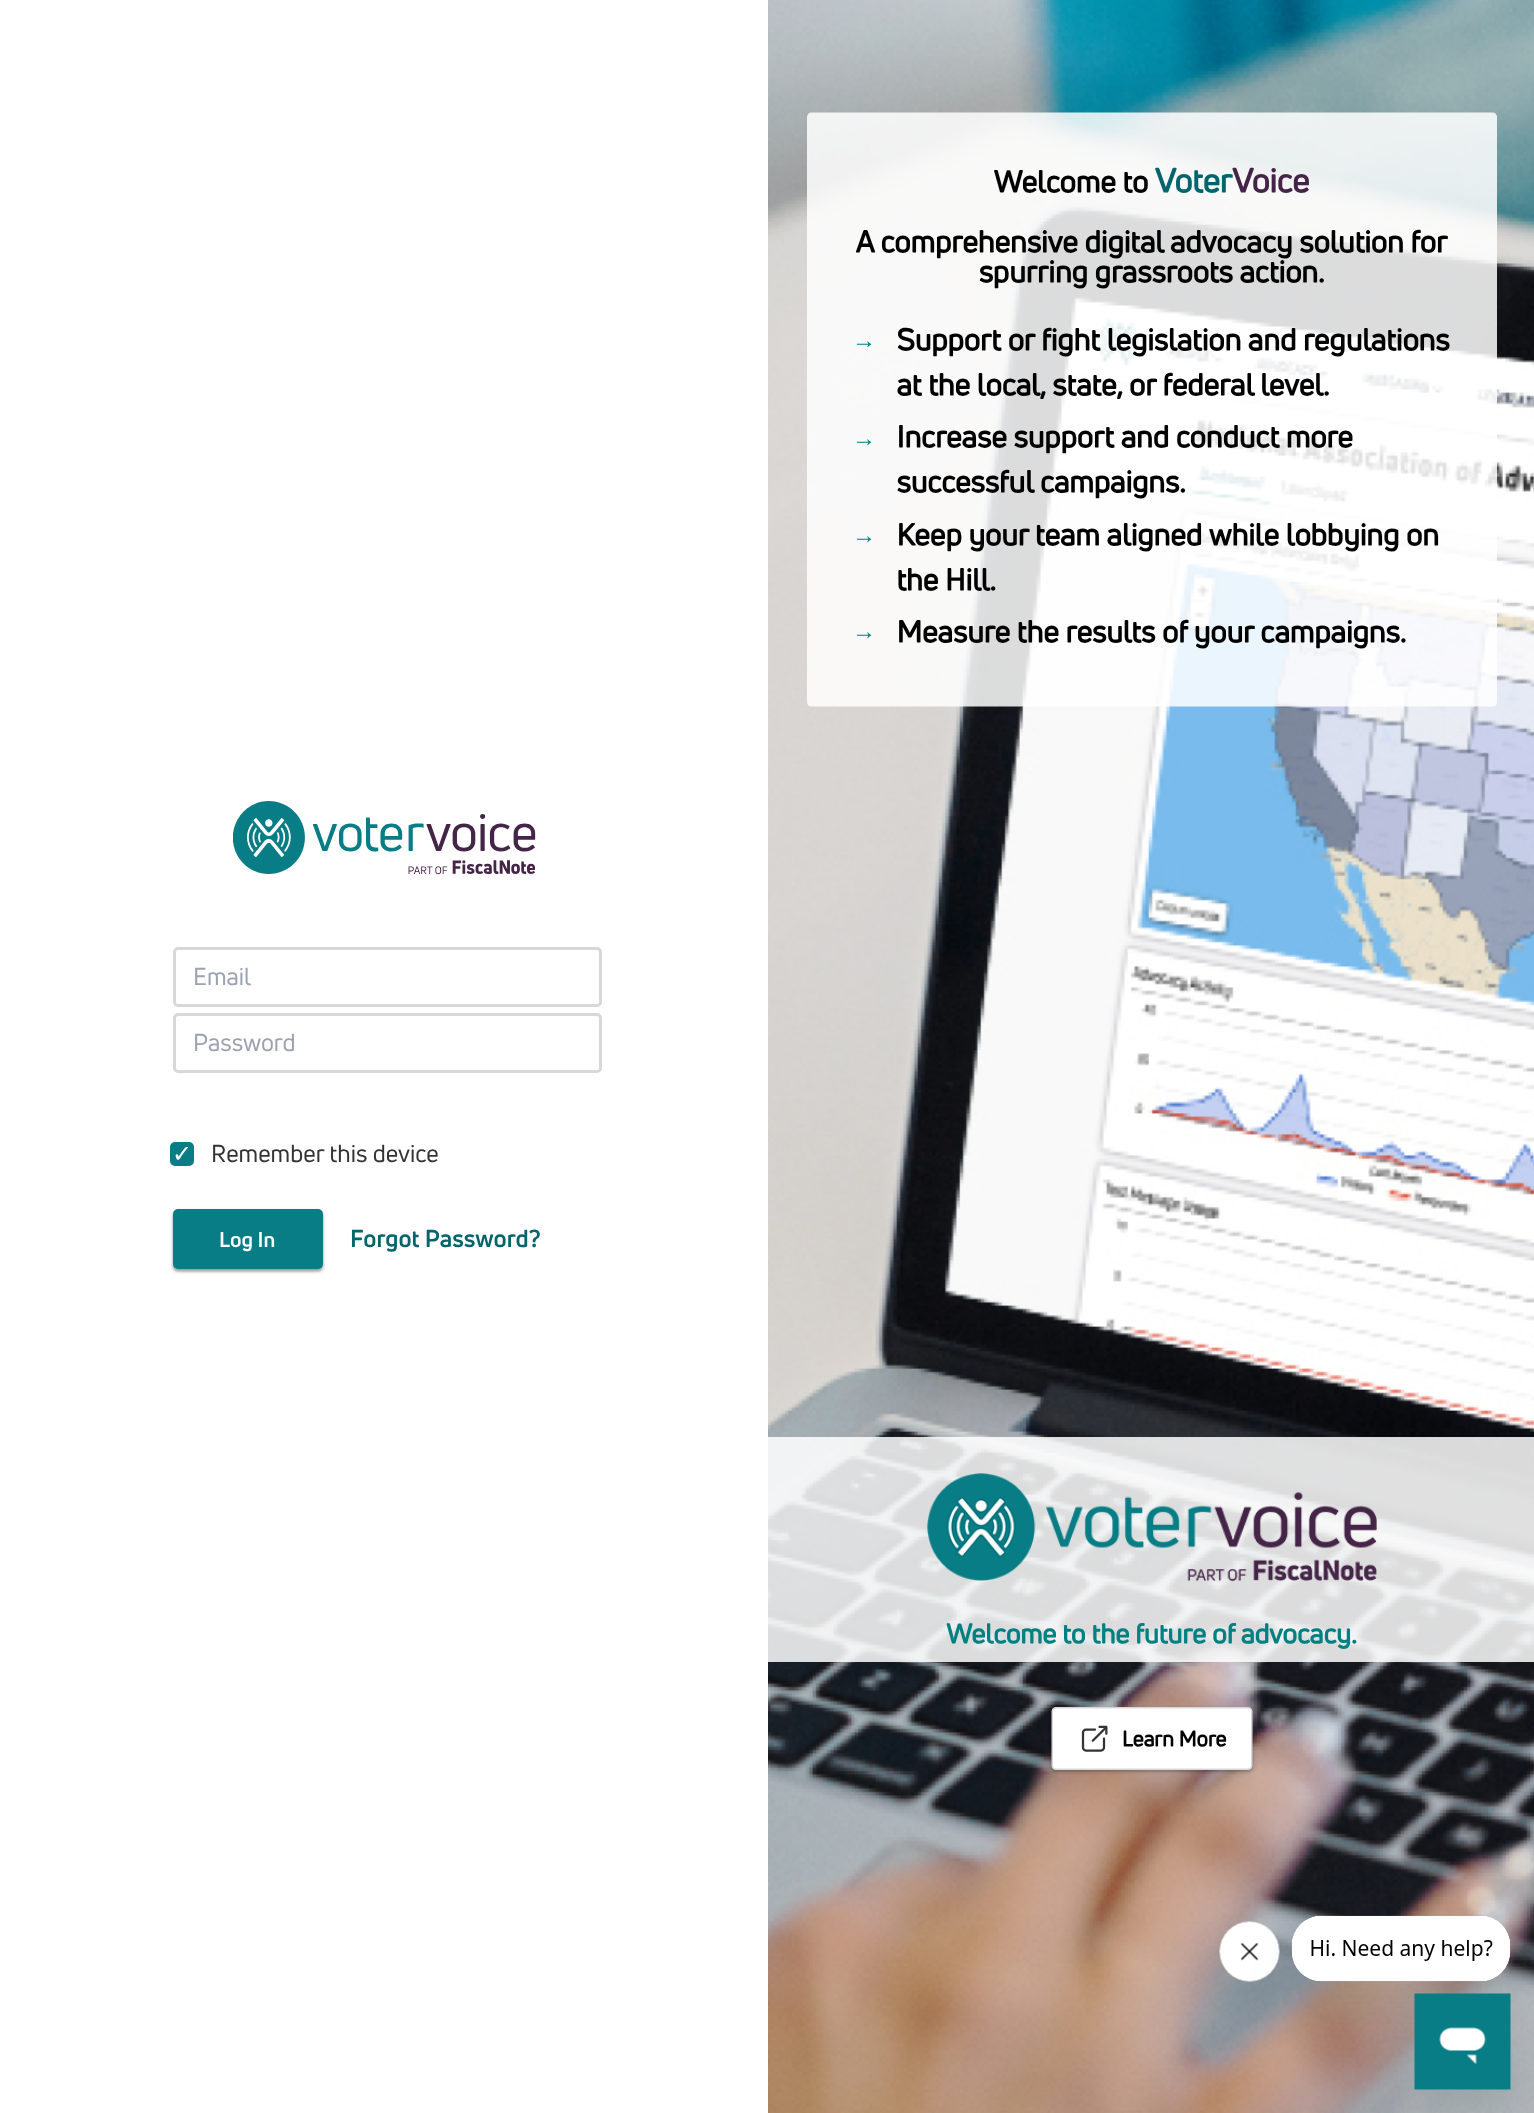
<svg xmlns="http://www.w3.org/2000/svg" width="1534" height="2113">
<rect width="100%" height="100%" fill="#fff"/>
<image x="233" y="801" width="303" height="74" href="media/1.png"/>
<rect x="174.5" y="948.5" width="426" height="57" rx="3.5" fill="none" stroke="#d8d8d8" stroke-width="3"/>
<text x="193" y="985" style="font-family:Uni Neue;font-size:24px;font-weight:500;fill:#9ca3af">Email</text>
<rect x="174.5" y="1014.5" width="426" height="57" rx="3.5" fill="none" stroke="#d8d8d8" stroke-width="3"/>
<text x="193" y="1051" style="font-family:Uni Neue;font-size:24px;font-weight:500;fill:#9ca3af">Password</text>
<rect x="170" y="1142" width="24" height="24" rx="5" fill="#087d85"/>
<text x="211" y="1162" style="font-family:Uni Neue;font-size:24px;font-weight:500;fill:#333">Remember this device</text>
<text x="172" y="1162" style="font-family:DejaVu Sans;font-size:24px;fill:#fff">✓</text>
<rect x="173" y="1211" width="150" height="60" rx="5" fill="#00000033" filter="blur(2px)"/>
<rect x="173" y="1212" width="150" height="60" rx="5" fill="#0000001f" filter="blur(1px)"/>
<rect x="173" y="1211" width="150" height="60" rx="5" fill="#00000024" filter="blur(1px)"/>
<rect x="174" y="1210" width="148" height="58" rx="4" fill="#087d85" stroke="#087d85" stroke-width="2"/>
<text x="219" y="1247" style="font-family:Uni Neue;font-size:21px;font-weight:bold;fill:#fff">Log In</text>
<text x="350" y="1247" style="font-family:Uni Neue;font-size:24px;font-weight:bold;fill:#02656b">Forgot Password?</text>
<image x="768" y="0" width="766" height="2113" href="media/2.png"/>
<rect x="1220" y="1952" width="60" height="60" rx="30" fill="#17494d26" filter="blur(22.5px)"/>
<image x="1219" y="1921" width="61" height="61" href="media/4.png"/>
<rect x="1292" y="1946" width="219" height="66" rx="30" fill="#17494d26" filter="blur(22.5px)"/>
<image x="1291" y="1915" width="220" height="67" href="media/3.png"/>
<rect x="1415" y="2024" width="96" height="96" fill="#17494d26" filter="blur(22.5px)"/>
<image x="1414" y="1993" width="97" height="97" href="media/5.png"/>
</svg>
